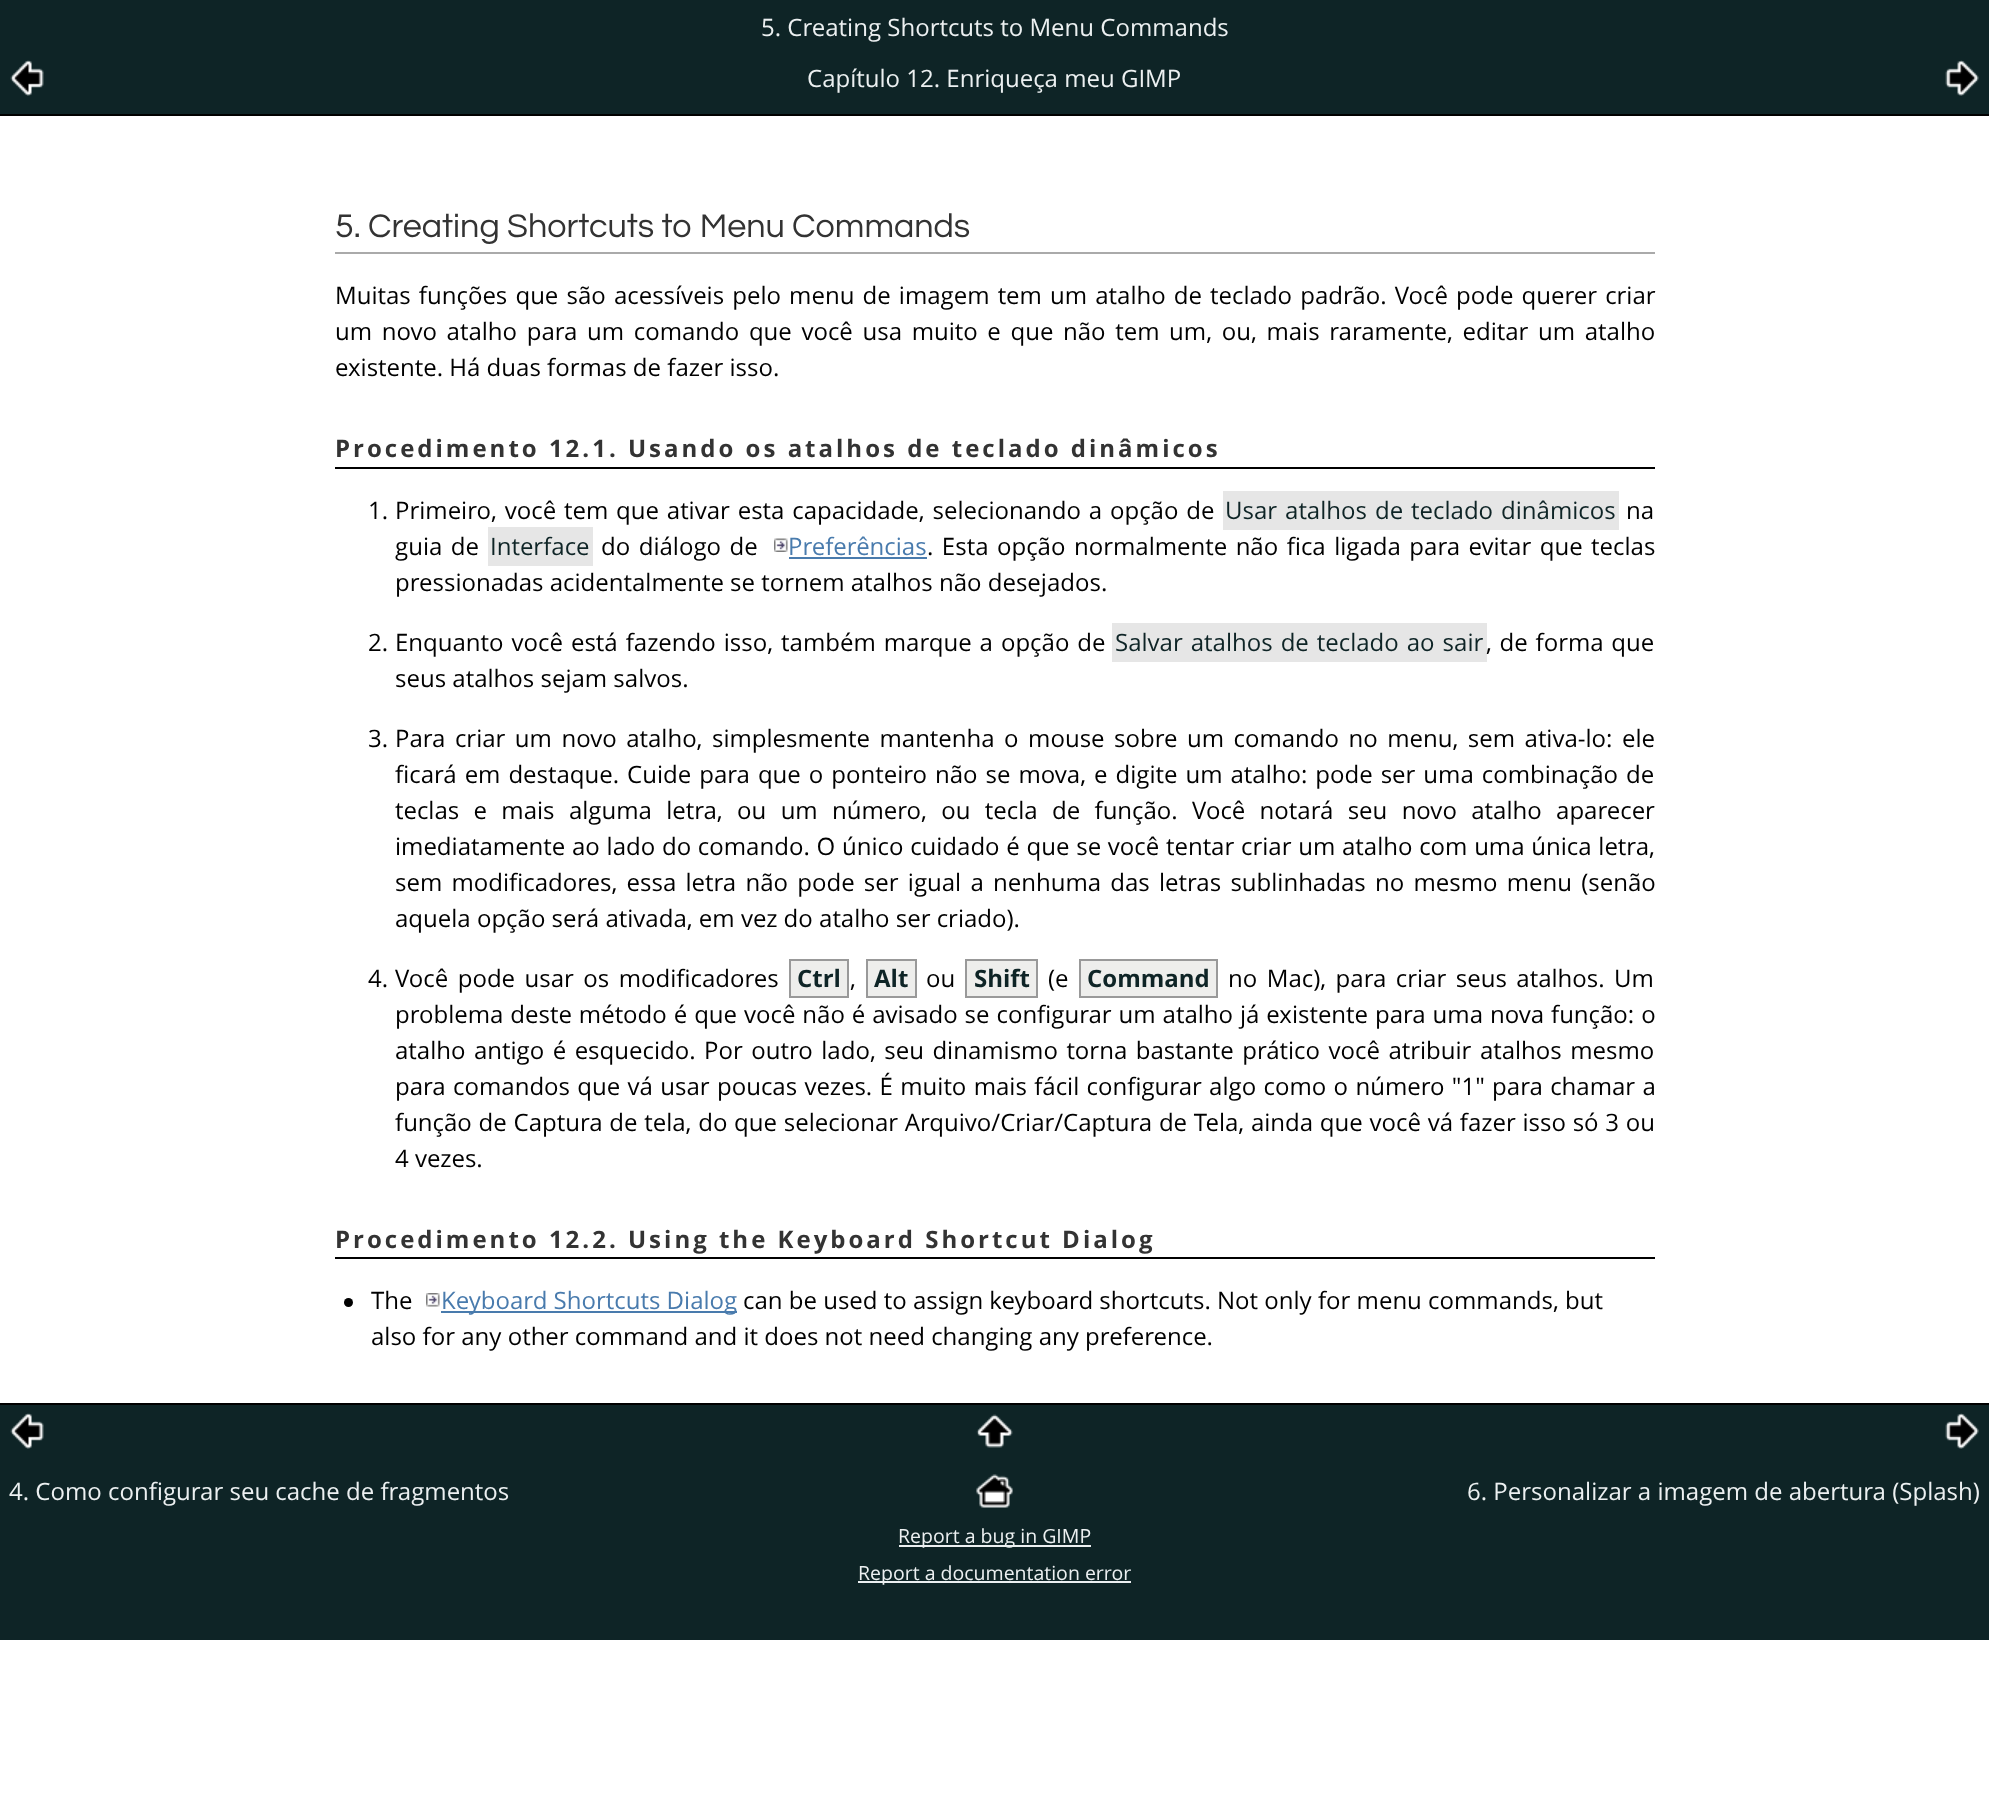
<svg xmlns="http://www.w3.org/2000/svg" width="1989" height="1800">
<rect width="100%" height="100%" fill="#fff"/>
<rect width="1989" height="114" fill="#0e2426"/>
<rect y="114" width="1989" height="2" fill="#000"/>
<text x="761" y="36" style="font-family:Open Sans;font-size:24px;fill:#ecf0f1">5. Creating Shortcuts to Menu Commands</text>
<image x="10" y="60" width="34" height="36" href="media/1.png"/>
<text x="807" y="87" style="font-family:Open Sans;font-size:24px;fill:#ecf0f1">Capítulo 12. Enriqueça meu GIMP</text>
<image x="1945" y="60" width="34" height="36" href="media/2.png"/>
<rect x="335" y="252" width="1320" height="2" fill="#aaa"/>
<text x="335" y="237" style="font-family:Questrial;font-size:34.1px;fill:#333">5. Creating Shortcuts to Menu Commands</text>
<text x="335" y="304" word-spacing="1.9" style="font-family:Open Sans;font-size:24px;fill:#000">Muitas funções que são acessíveis pelo menu de imagem tem um atalho de teclado padrão. Você pode querer criar</text>
<text x="335" y="340" word-spacing="3.4" style="font-family:Open Sans;font-size:24px;fill:#000">um novo atalho para um comando que você usa muito e que não tem um, ou, mais raramente, editar um atalho</text>
<text x="335" y="376" style="font-family:Open Sans;font-size:24px;fill:#000">existente. Há duas formas de fazer isso.</text>
<rect x="335" y="467" width="1320" height="2" fill="#000"/>
<text x="335" y="457" style="font-family:Open Sans;font-size:24px;font-weight:bold;letter-spacing:3px;fill:#333">Procedimento 12.1. Usando os atalhos de teclado dinâmicos</text>
<text x="368" y="519" style="font-family:Open Sans;font-size:24px;fill:#000">1.</text>
<text x="395" y="519" word-spacing="1.6" style="font-family:Open Sans;font-size:24px;fill:#000">Primeiro, você tem que ativar esta capacidade, selecionando a opção de</text>
<rect x="1223" y="491" width="396" height="39" fill="#e6e6e6"/>
<text x="1225" y="519" word-spacing="1.75" style="font-family:Open Sans;font-size:24px;fill:#0e2426">Usar atalhos de teclado dinâmicos</text>
<text x="1626" y="519" style="font-family:Open Sans;font-size:24px;fill:#000">na</text>
<text x="395" y="555" word-spacing="2.25" style="font-family:Open Sans;font-size:24px;fill:#000">guia de</text>
<rect x="488" y="527" width="105" height="39" fill="#e6e6e6"/>
<text x="490" y="555" style="font-family:Open Sans;font-size:24px;fill:#0e2426">Interface</text>
<text x="601" y="555" word-spacing="2.25" style="font-family:Open Sans;font-size:24px;fill:#000">do diálogo de</text>
<image x="774" y="538" width="14" height="14" href="media/3.png"/>
<text x="788" y="555" style="font-family:Open Sans;font-size:24px;fill:#497bad">Preferências</text>
<rect x="789" y="557" width="138" height="2" fill="#497bad"/>
<text x="927" y="555" word-spacing="2.25" style="font-family:Open Sans;font-size:24px;fill:#000">. Esta opção normalmente não fica ligada para evitar que teclas</text>
<text x="395" y="591" style="font-family:Open Sans;font-size:24px;fill:#000">pressionadas acidentalmente se tornem atalhos não desejados.</text>
<text x="368" y="651" style="font-family:Open Sans;font-size:24px;fill:#000">2.</text>
<text x="395" y="651" word-spacing="1.75" style="font-family:Open Sans;font-size:24px;fill:#000">Enquanto você está fazendo isso, também marque a opção de</text>
<rect x="1112" y="623" width="375" height="39" fill="#e6e6e6"/>
<text x="1115" y="651" word-spacing="1.75" style="font-family:Open Sans;font-size:24px;fill:#0e2426">Salvar atalhos de teclado ao sair</text>
<text x="1486" y="651" word-spacing="1.5" style="font-family:Open Sans;font-size:24px;fill:#000">, de forma que</text>
<text x="395" y="687" style="font-family:Open Sans;font-size:24px;fill:#000">seus atalhos sejam salvos.</text>
<text x="368" y="747" style="font-family:Open Sans;font-size:24px;fill:#000">3.</text>
<text x="395" y="747" word-spacing="3.25" style="font-family:Open Sans;font-size:24px;fill:#000">Para criar um novo atalho, simplesmente mantenha o mouse sobre um comando no menu, sem ativa-lo: ele</text>
<text x="395" y="783" word-spacing="1.75" style="font-family:Open Sans;font-size:24px;fill:#000">ficará em destaque. Cuide para que o ponteiro não se mova, e digite um atalho: pode ser uma combinação de</text>
<text x="395" y="819" word-spacing="8.1" style="font-family:Open Sans;font-size:24px;fill:#000">teclas e mais alguma letra, ou um número, ou tecla de função. Você notará seu novo atalho aparecer</text>
<text x="395" y="855" word-spacing="0.5" style="font-family:Open Sans;font-size:24px;fill:#000">imediatamente ao lado do comando. O único cuidado é que se você tentar criar um atalho com uma única letra,</text>
<text x="395" y="891" word-spacing="3" style="font-family:Open Sans;font-size:24px;fill:#000">sem modificadores, essa letra não pode ser igual a nenhuma das letras sublinhadas no mesmo menu (senão</text>
<text x="395" y="927" style="font-family:Open Sans;font-size:24px;fill:#000">aquela opção será ativada, em vez do atalho ser criado).</text>
<text x="368" y="987" style="font-family:Open Sans;font-size:24px;fill:#000">4.</text>
<text x="395" y="987" word-spacing="3.25" style="font-family:Open Sans;font-size:24px;fill:#000">Você pode usar os modificadores</text>
<rect x="790" y="960" width="58" height="37" fill="#eeeeec" stroke="#999" stroke-width="2"/>
<text x="797" y="987" style="font-family:Open Sans;font-size:24px;font-weight:bold;fill:#0e2426">Ctrl</text>
<text x="850" y="987" style="font-family:Open Sans;font-size:24px;fill:#000">,</text>
<rect x="867" y="960" width="49" height="37" fill="#eeeeec" stroke="#999" stroke-width="2"/>
<text x="874" y="987" style="font-family:Open Sans;font-size:24px;font-weight:bold;fill:#0e2426">Alt</text>
<text x="926" y="987" style="font-family:Open Sans;font-size:24px;fill:#000">ou</text>
<rect x="966" y="960" width="71" height="37" fill="#eeeeec" stroke="#999" stroke-width="2"/>
<text x="974" y="987" style="font-family:Open Sans;font-size:24px;font-weight:bold;fill:#0e2426">Shift</text>
<text x="1048" y="987" style="font-family:Open Sans;font-size:24px;fill:#000">(e</text>
<rect x="1080" y="960" width="137" height="37" fill="#eeeeec" stroke="#999" stroke-width="2"/>
<text x="1087" y="987" style="font-family:Open Sans;font-size:24px;font-weight:bold;fill:#0e2426">Command</text>
<text x="1228" y="987" word-spacing="3.25" style="font-family:Open Sans;font-size:24px;fill:#000">no Mac), para criar seus atalhos. Um</text>
<text x="395" y="1023" word-spacing="0.7" style="font-family:Open Sans;font-size:24px;fill:#000">problema deste método é que você não é avisado se configurar um atalho já existente para uma nova função: o</text>
<text x="395" y="1059" word-spacing="2.25" style="font-family:Open Sans;font-size:24px;fill:#000">atalho antigo é esquecido. Por outro lado, seu dinamismo torna bastante prático você atribuir atalhos mesmo</text>
<text x="395" y="1095" word-spacing="1.1" style="font-family:Open Sans;font-size:24px;fill:#000">para comandos que vá usar poucas vezes. É muito mais fácil configurar algo como o número "1" para chamar a</text>
<text x="395" y="1131" word-spacing="0.5" style="font-family:Open Sans;font-size:24px;fill:#000">função de Captura de tela, do que selecionar Arquivo/Criar/Captura de Tela, ainda que você vá fazer isso só 3 ou</text>
<text x="395" y="1167" style="font-family:Open Sans;font-size:24px;fill:#000">4 vezes.</text>
<rect x="335" y="1257" width="1320" height="2" fill="#000"/>
<text x="335" y="1248" style="font-family:Open Sans;font-size:24px;font-weight:bold;letter-spacing:3px;fill:#333">Procedimento 12.2. Using the Keyboard Shortcut Dialog</text>
<circle cx="348.5" cy="1302.5" r="4.5" fill="#000"/>
<text x="371" y="1309" style="font-family:Open Sans;font-size:24px;fill:#000">The</text>
<image x="426" y="1293" width="14" height="14" href="media/4.png"/>
<rect x="441" y="1311" width="296" height="2" fill="#497bad"/>
<text x="441" y="1309" style="font-family:Open Sans;font-size:24px;fill:#497bad">Keyboard Shortcuts Dialog</text>
<text x="743" y="1309" style="font-family:Open Sans;font-size:24px;fill:#000">can be used to assign keyboard shortcuts. Not only for menu commands, but</text>
<text x="371" y="1345" style="font-family:Open Sans;font-size:24px;fill:#000">also for any other command and it does not need changing any preference.</text>
<rect y="1405" width="1989" height="235" fill="#0e2426"/>
<rect y="1403" width="1989" height="2" fill="#000"/>
<image x="10" y="1413" width="34" height="36" href="media/1.png"/>
<image x="976" y="1414" width="37" height="34" href="media/5.png"/>
<image x="1945" y="1413" width="34" height="36" href="media/2.png"/>
<text x="9" y="1500" style="font-family:Open Sans;font-size:24px;fill:#ecf0f1">4. Como configurar seu cache de fragmentos</text>
<image x="976" y="1474" width="37" height="34" href="media/6.png"/>
<text x="1467" y="1500" style="font-family:Open Sans;font-size:24px;fill:#ecf0f1">6. Personalizar a imagem de abertura (Splash)</text>
<rect x="899" y="1545" width="192" height="2" fill="#ecf0f1"/>
<text x="898" y="1543" style="font-family:Open Sans;font-size:19.5px;fill:#ecf0f1">Report a bug in GIMP</text>
<rect x="858" y="1581" width="273" height="2" fill="#ecf0f1"/>
<text x="858" y="1580" style="font-family:Open Sans;font-size:19.5px;fill:#ecf0f1">Report a documentation error</text>
</svg>
